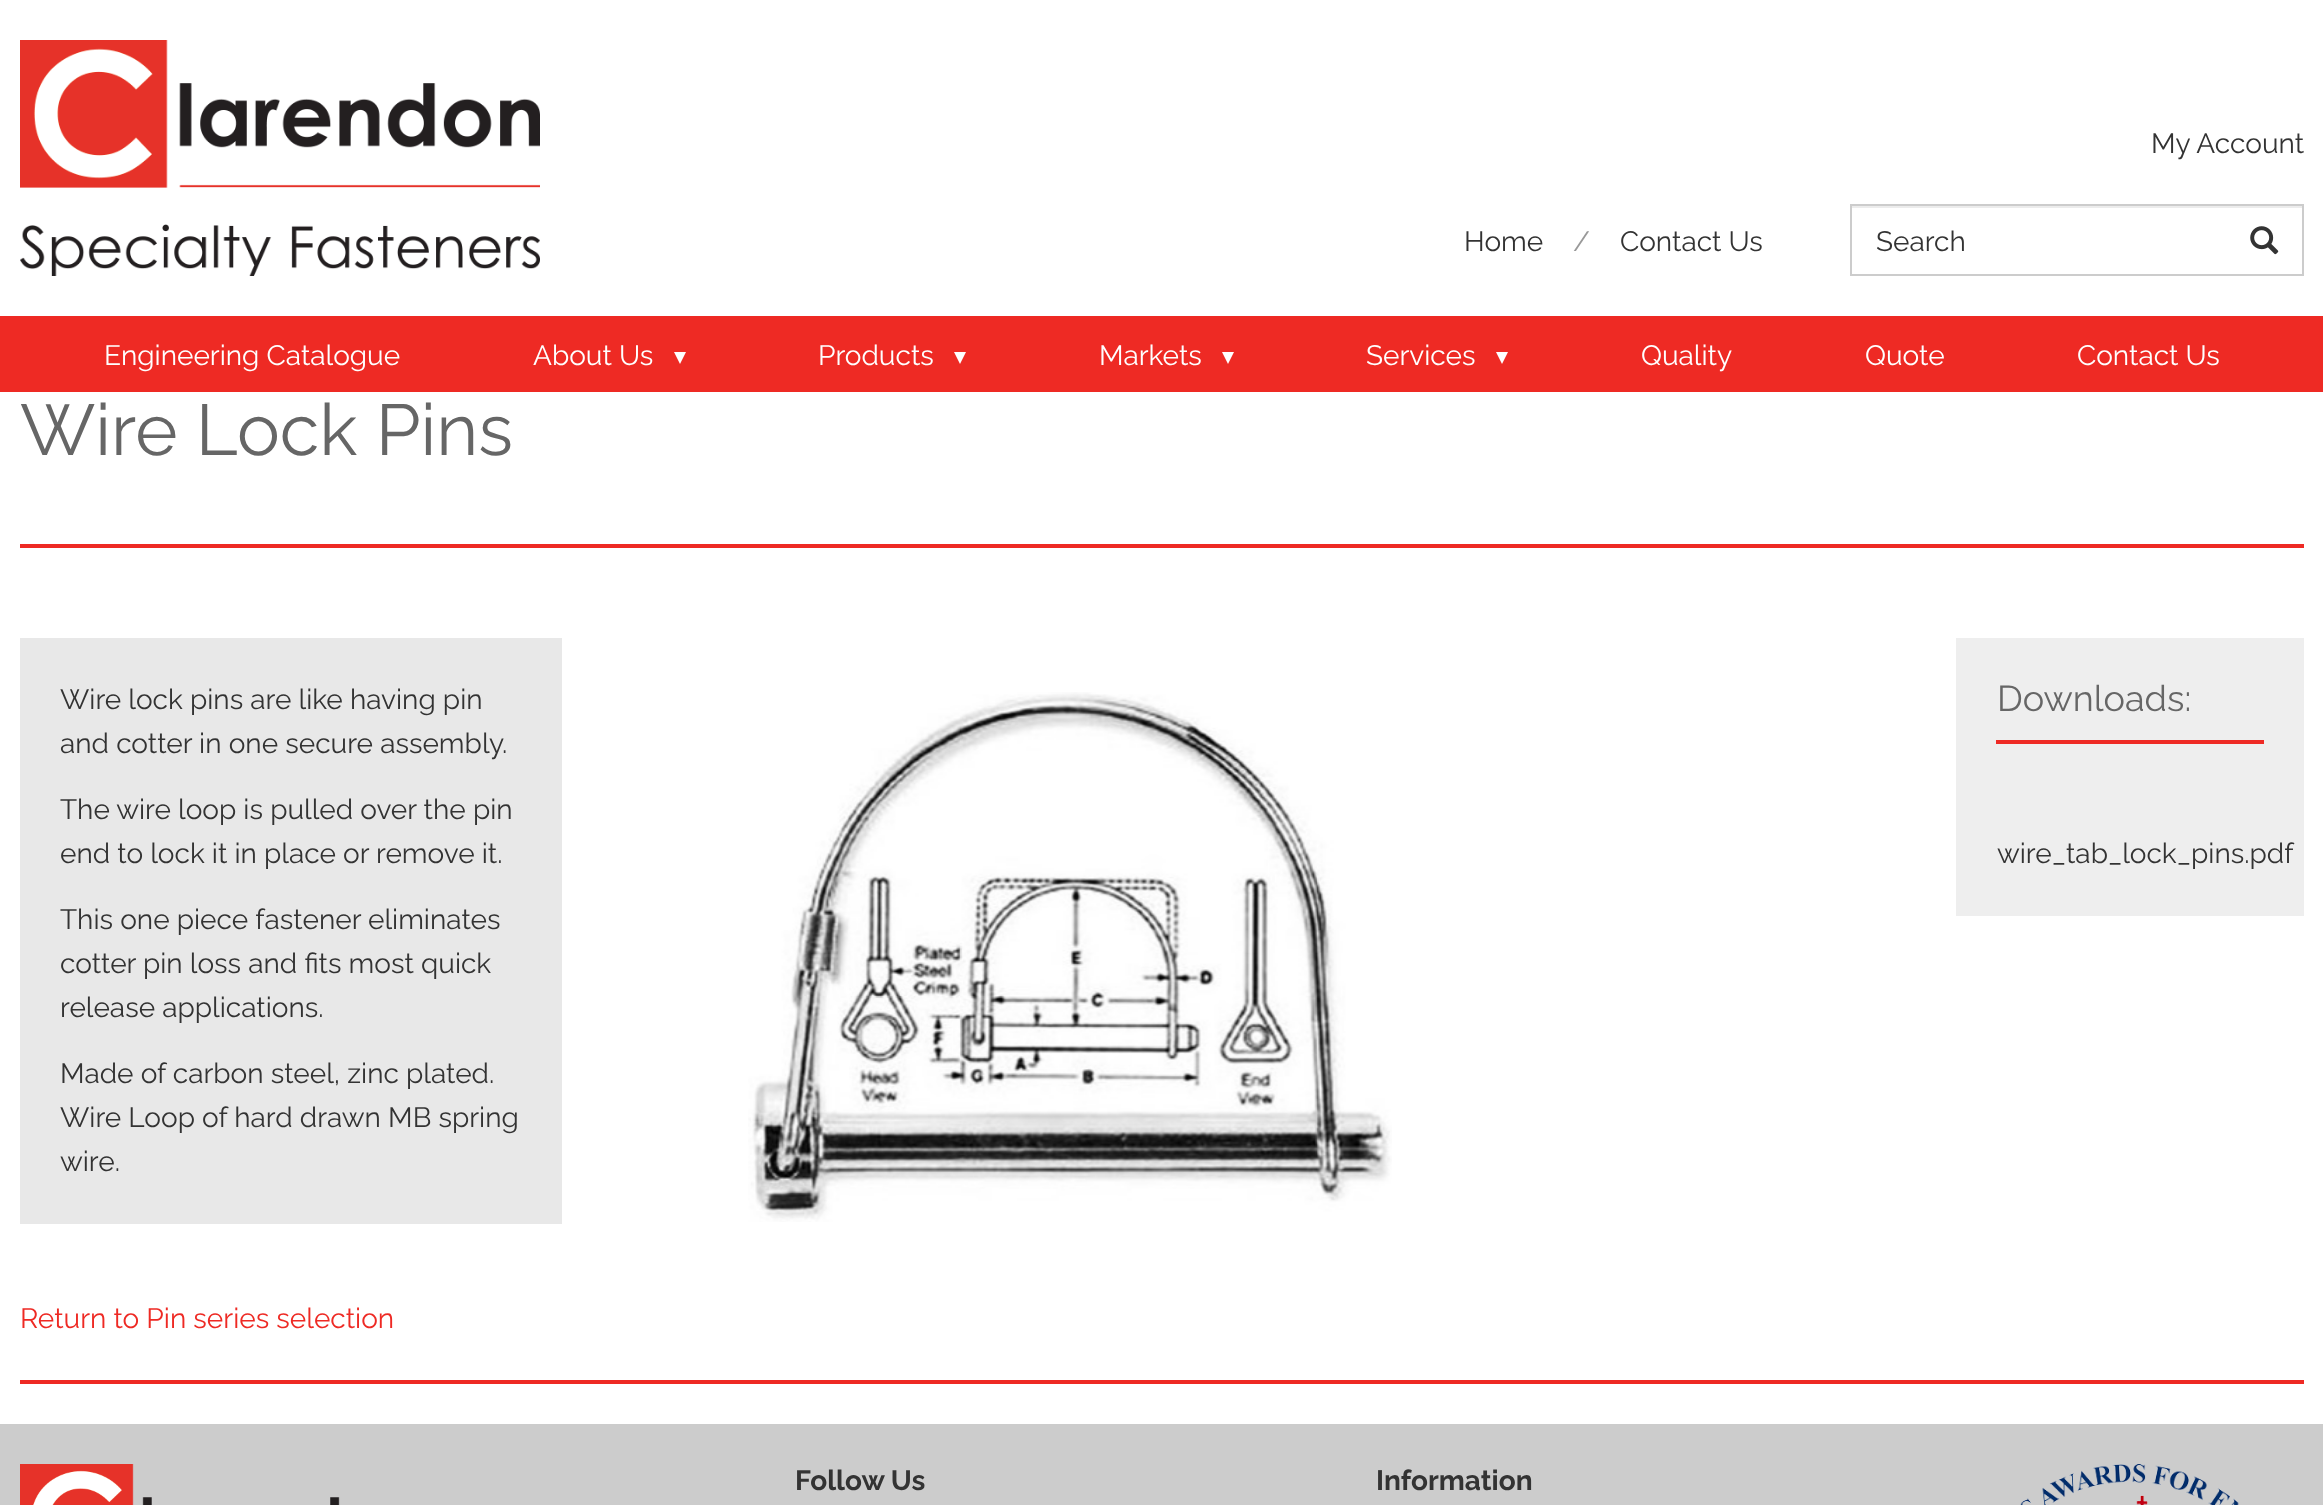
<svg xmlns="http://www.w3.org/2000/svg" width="2323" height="1505">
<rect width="100%" height="100%" fill="#fff"/>
<image x="20" y="40" width="520" height="236" href="media/1.png"/>
<text x="2151" y="153" style="font-family:Raleway;font-size:28px;fill:#333">My Account</text>
<text x="1464" y="251" style="font-family:Raleway;font-size:28px;fill:#333">Home</text>
<text x="1573" y="251" style="font-family:Raleway;font-size:28px;fill:#999">/</text>
<text x="1620" y="251" style="font-family:Raleway;font-size:28px;fill:#333">Contact Us</text>
<rect x="1852" y="206" width="450" height="2" fill="#ececec"/>
<rect x="1851" y="205" width="452" height="70" fill="none" stroke="#ccc" stroke-width="2"/>
<text x="1876" y="251" style="font-family:Raleway;font-size:28px;fill:#333">Search</text>
<image x="2250" y="226" width="29" height="29" href="media/2.png"/>
<rect y="316" width="2323" height="76" fill="#ee2a24"/>
<text x="104" y="365" style="font-family:Raleway;font-size:28px;fill:#fff">Engineering Catalogue</text>
<text x="533" y="365" style="font-family:Raleway;font-size:28px;fill:#fff">About Us</text>
<path d="M674 352h12l-6 12z" fill="#fff"/>
<text x="818" y="365" style="font-family:Raleway;font-size:28px;fill:#fff">Products</text>
<path d="M954 352h12l-6 12z" fill="#fff"/>
<text x="1099" y="365" style="font-family:Raleway;font-size:28px;fill:#fff">Markets</text>
<path d="M1222 352h12l-6 12z" fill="#fff"/>
<text x="1366" y="365" style="font-family:Raleway;font-size:28px;fill:#fff">Services</text>
<path d="M1496 352h12l-6 12z" fill="#fff"/>
<text x="1641" y="365" style="font-family:Raleway;font-size:28px;fill:#fff">Quality</text>
<text x="1865" y="365" style="font-family:Raleway;font-size:28px;fill:#fff">Quote</text>
<text x="2077" y="365" style="font-family:Raleway;font-size:28px;fill:#fff">Contact Us</text>
<text x="20" y="455" style="font-family:Raleway;font-size:72px;fill:#666">Wire Lock Pins</text>
<rect x="20" y="544" width="2284" height="4" fill="#ee2a24"/>
<rect x="20" y="638" width="542" height="586" fill="#e8e8e8"/>
<text x="60" y="709" style="font-family:Raleway;font-size:28px;fill:#333">Wire lock pins are like having pin</text>
<text x="60" y="753" style="font-family:Raleway;font-size:28px;fill:#333">and cotter in one secure assembly.</text>
<text x="60" y="819" style="font-family:Raleway;font-size:28px;fill:#333">The wire loop is pulled over the pin</text>
<text x="60" y="863" style="font-family:Raleway;font-size:28px;fill:#333">end to lock it in place or remove it.</text>
<text x="60" y="929" style="font-family:Raleway;font-size:28px;fill:#333">This one piece fastener eliminates</text>
<text x="60" y="973" style="font-family:Raleway;font-size:28px;fill:#333">cotter pin loss and fits most quick</text>
<text x="60" y="1017" style="font-family:Raleway;font-size:28px;fill:#333">release applications.</text>
<text x="60" y="1083" style="font-family:Raleway;font-size:28px;fill:#333">Made of carbon steel, zinc plated.</text>
<text x="60" y="1127" style="font-family:Raleway;font-size:28px;fill:#333">Wire Loop of hard drawn MB spring</text>
<text x="60" y="1171" style="font-family:Raleway;font-size:28px;fill:#333">wire.</text>
<image x="748" y="692" width="644" height="530" href="media/3.png"/>
<rect x="1956" y="638" width="348" height="278" fill="#eee"/>
<rect x="1996" y="740" width="268" height="4" fill="#ee2a24"/>
<text x="1997" y="711" style="font-family:Raleway;font-size:36px;fill:#666">Downloads:</text>
<text x="1997" y="863" style="font-family:Raleway;font-size:28px;fill:#333">wire_tab_lock_pins.pdf</text>
<text x="20" y="1328" style="font-family:Raleway;font-size:28px;fill:#ee2a24">Return to Pin series selection</text>
<rect x="20" y="1380" width="2284" height="4" fill="#ee2a24"/>
<rect y="1424" width="2323" height="81" fill="#ccc"/>
<image x="20" y="1464" width="320" height="41" href="media/4.png"/>
<text x="795" y="1490" style="font-family:Raleway;font-size:28px;font-weight:bold;fill:#333">Follow Us</text>
<text x="1376" y="1490" style="font-family:Raleway;font-size:28px;font-weight:bold;fill:#333">Information</text>
<image x="2020" y="1464" width="219" height="41" href="media/5.png"/>
</svg>
